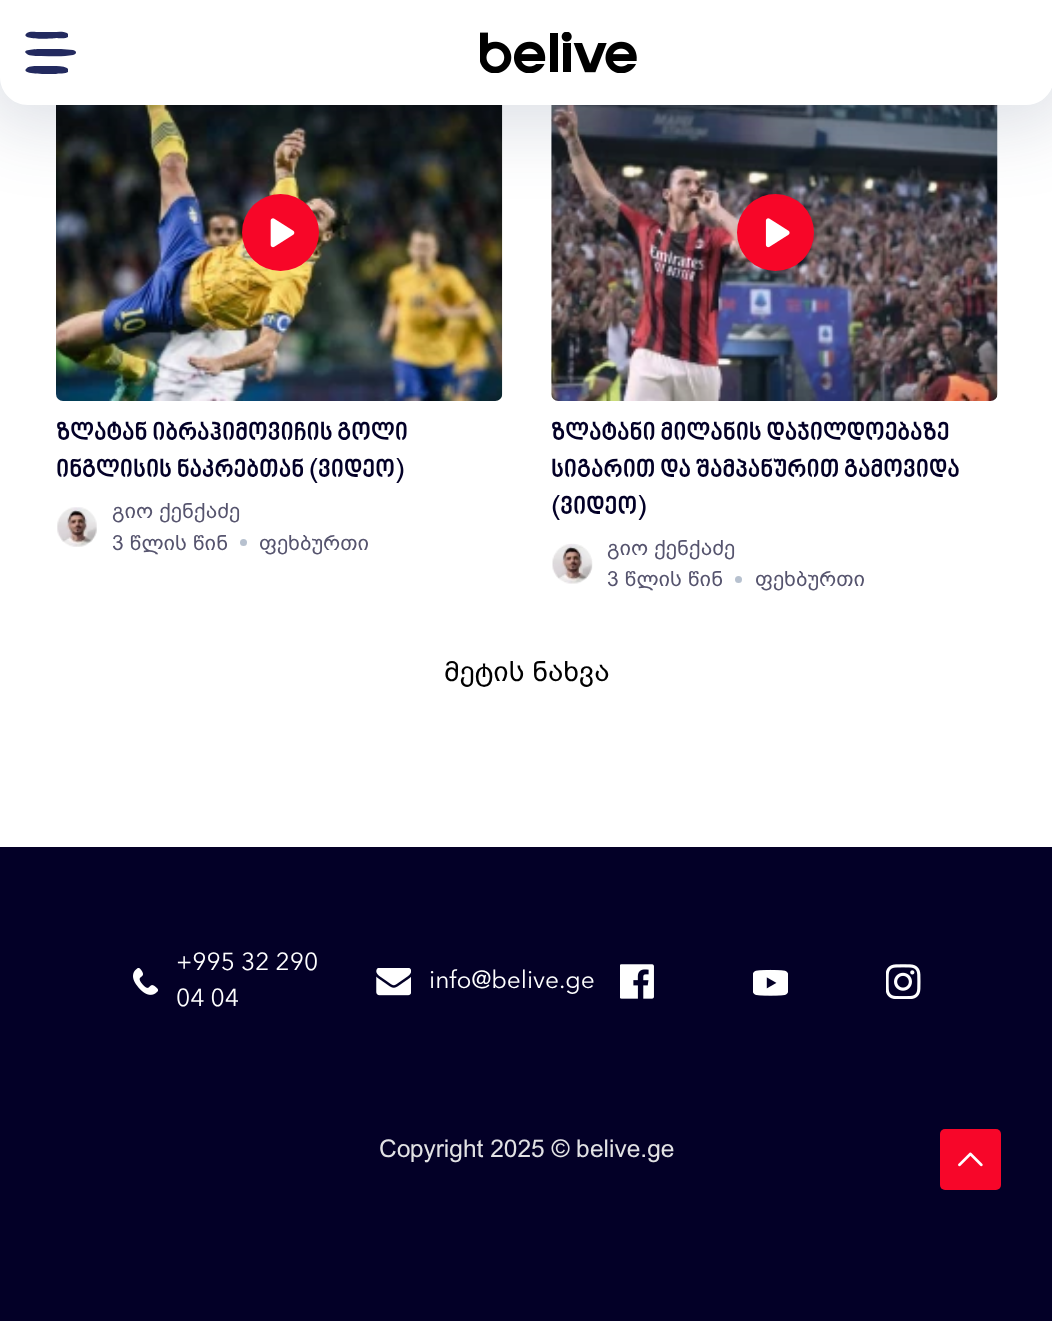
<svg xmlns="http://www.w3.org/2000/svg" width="1052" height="1321">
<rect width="100%" height="100%" fill="#fff"/>
<image x="56" y="105" width="447" height="296" href="media/2.png"/>
<circle cx="280.5" cy="232.5" r="38.5" fill="#f70628"/>
<image x="270" y="218" width="25" height="30" href="media/3.png"/>
<image x="551" y="105" width="447" height="296" href="media/5.png"/>
<circle cx="775.5" cy="232.5" r="38.5" fill="#f70628"/>
<image x="765" y="218" width="25" height="30" href="media/6.png"/>
<rect x="-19" y="-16" width="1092" height="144" rx="47" fill="#23395b26" filter="blur(35px)"/>
<path d="M0 0h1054v77c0 15.5-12.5 28-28 28h-998c-15.5 0-28-12.5-28-28z" fill="#fff"/>
<path d="M39 32h14c4 0 10-1 14 1l1 1v3c-2 2-10 1-12 1c-6 1-38 2-29-5c2-2 9-1 12-1zm2 17h20l12 1c4 1 4 4 0 5c-10 2-22 1-32 1c-3 0-12 0-14-2c-8-5 13-5 14-5zm-2 17h14c4 0 10 0 14 2l1 1v3c-2 2-10 1-12 2c-6 0-38 1-29-6c2-2 9-2 12-2z" fill="#232a5f"/>
<image x="480" y="32" width="157" height="41" href="media/1.png"/>
<text x="56" y="441" style="font-family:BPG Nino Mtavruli;font-size:24.5px;font-weight:bold;fill:#030027">ზლატან იბრაჰიმოვიჩის გოლი</text>
<text x="56" y="478" style="font-family:BPG Nino Mtavruli;font-size:24.5px;font-weight:bold;fill:#030027">ინგლისის ნაკრებთან (ვიდეო)</text>
<image x="57" y="507" width="40" height="40" href="media/4.png"/>
<text x="112" y="518" style="font-family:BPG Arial;font-size:21px;fill:#56546e">გიო ქენქაძე</text>
<text x="112" y="550" style="font-family:BPG Arial;font-size:21px;fill:#56546e">3 წლის წინ</text>
<circle cx="243.5" cy="542.5" r="3.5" fill="#b7c1cf"/>
<text x="259" y="550" style="font-family:BPG Arial;font-size:21px;fill:#56546e">ფეხბურთი</text>
<text x="551" y="441" style="font-family:BPG Nino Mtavruli;font-size:24.5px;font-weight:bold;fill:#030027">ზლატანი მილანის დაჯილდოებაზე</text>
<text x="551" y="478" style="font-family:BPG Nino Mtavruli;font-size:24.5px;font-weight:bold;fill:#030027">სიგარით და შამპანურით გამოვიდა</text>
<text x="551" y="515" style="font-family:BPG Nino Mtavruli;font-size:24.5px;font-weight:bold;fill:#030027">(ვიდეო)</text>
<image x="552" y="543" width="41" height="41" href="media/7.png"/>
<text x="607" y="555" style="font-family:BPG Arial;font-size:21px;fill:#56546e">გიო ქენქაძე</text>
<text x="607" y="586" style="font-family:BPG Arial;font-size:21px;fill:#56546e">3 წლის წინ</text>
<circle cx="738.5" cy="579.5" r="3.5" fill="#b7c1cf"/>
<text x="755" y="586" style="font-family:BPG Arial;font-size:21px;fill:#56546e">ფეხბურთი</text>
<text x="444" y="681" style="font-family:BPG Arial;font-size:28px;fill:#000">მეტის ნახვა</text>
<rect y="847" width="1052" height="474" fill="#030027"/>
<rect x="940" y="1129" width="61" height="61" rx="5" fill="#f70629"/>
<image x="958" y="1152" width="25" height="15" href="media/8.png"/>
<image x="133" y="968" width="25" height="27" href="media/9.png"/>
<text x="176" y="970" style="font-family:Avenir Next;font-size:24.5px;fill:#fff">+995 32 290</text>
<text x="176" y="1006" style="font-family:Avenir Next;font-size:24.5px;fill:#fff">04 04</text>
<image x="376" y="968" width="35" height="28" href="media/10.png"/>
<text x="429" y="988" style="font-family:Avenir Next;font-size:24.5px;fill:#fff">info@belive.ge</text>
<image x="620" y="964" width="34" height="35" href="media/11.png"/>
<image x="753" y="969" width="35" height="27" href="media/12.png"/>
<image x="886" y="964" width="35" height="35" href="media/13.png"/>
<text x="379" y="1157" style="font-family:BPG Arial;font-size:24.5px;fill:#e2e2e4">Copyright 2025 © belive.ge</text>
</svg>
